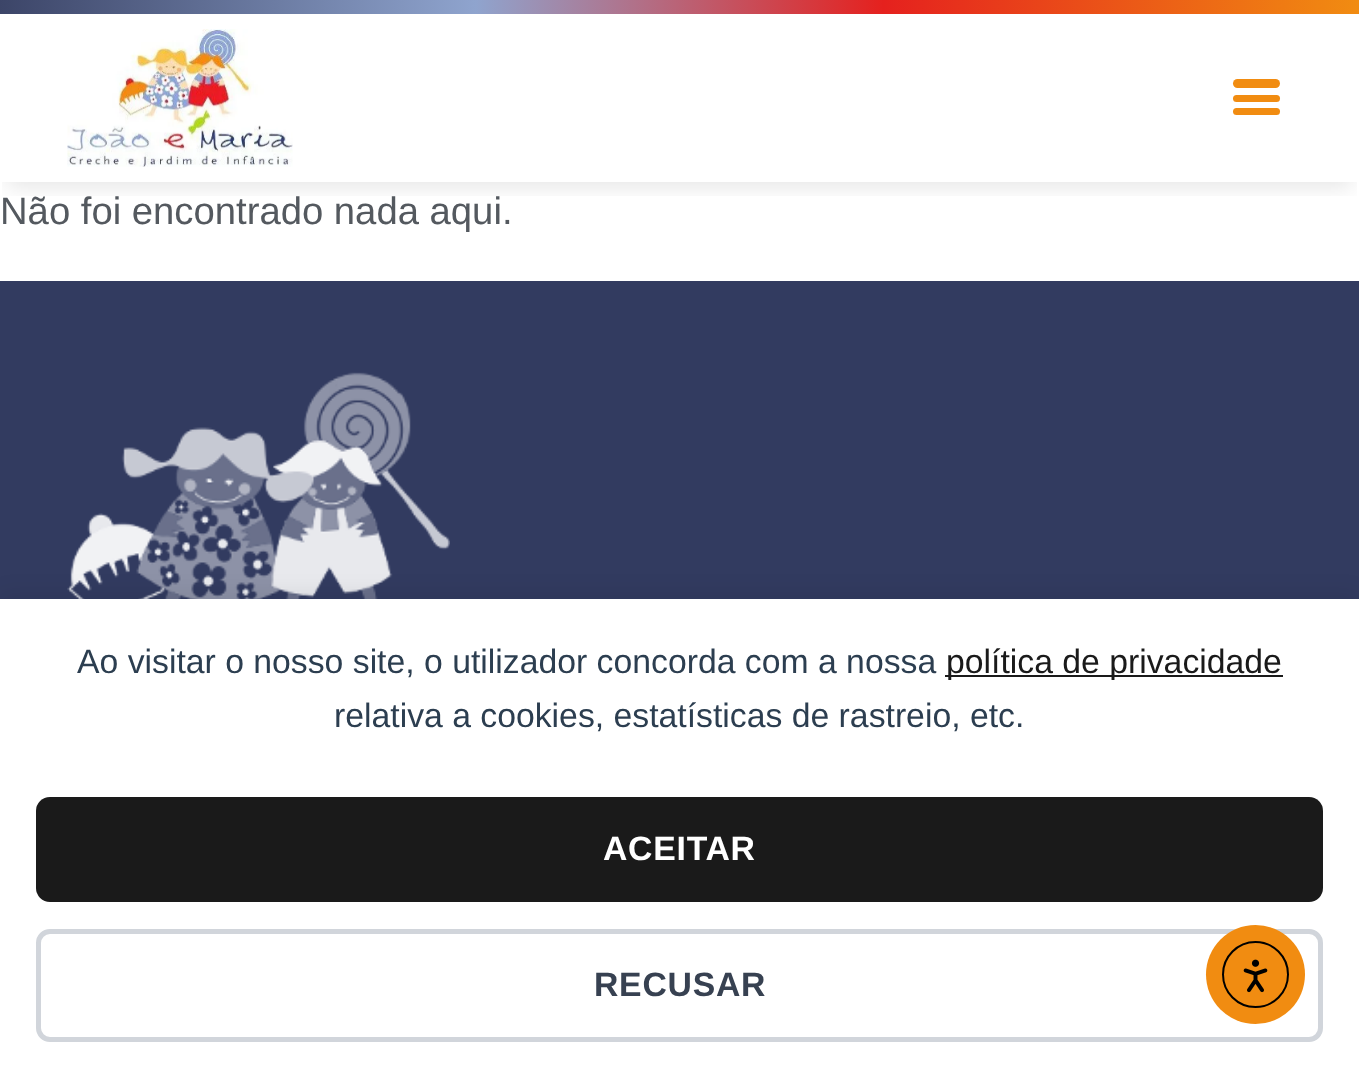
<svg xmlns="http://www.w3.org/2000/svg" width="1359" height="1076">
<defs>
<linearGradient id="g1" gradientUnits="userSpaceOnUse" x1="0" y1="6.8" x2="1359" y2="6.7"><stop offset="0" stop-color="#3c4568"/><stop offset="0.35" stop-color="#8fa4ce"/><stop offset="0.65" stop-color="#e5211e"/><stop offset="1" stop-color="#f18c11"/></linearGradient>
<clipPath id="clip1"><rect x="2" y="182" width="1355" height="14"/></clipPath>
</defs>
<rect width="100%" height="100%" fill="#fff"/>
<rect width="1359" height="14" fill="url(#g1)"/>
<g clip-path="url(#clip1)">
<rect x="7" y="32" width="1345" height="155" fill="#0000001a" filter="blur(11px)"/>
</g>
<image x="67" y="29" width="226" height="138" href="media/1.png"/>
<rect x="1233" y="95" width="47" height="7" rx="3.5" fill="#f18c11"/>
<rect x="1233" y="79" width="47" height="9" rx="4.5" fill="#f18c11"/>
<rect x="1233" y="108" width="47" height="7" rx="3.5" fill="#f18c11"/>
<text x="0" y="224" style="font-family:Liberation Sans;font-size:38.25px;fill:#54595f">Não foi encontrado nada aqui.</text>
<rect y="281" width="1359" height="318" fill="#323b60"/>
<image x="67" y="372" width="383" height="227" href="media/2.png"/>
<rect y="594" width="1359" height="479" fill="#00000014" filter="blur(11px)"/>
<rect y="599" width="1359" height="477" fill="#fff"/>
<text x="77" y="673" style="font-family:Liberation Sans;font-size:33.75px;fill:#2c3e50">Ao visitar o nosso site, o utilizador concorda com a nossa</text>
<rect x="945" y="675" width="338" height="2" fill="#1a1a1a"/>
<text x="946" y="673" style="font-family:Liberation Sans;font-size:33.75px;fill:#1a1a1a">política de privacidade</text>
<text x="334" y="727" style="font-family:Liberation Sans;font-size:33.75px;fill:#2c3e50">relativa a cookies, estatísticas de rastreio, etc.</text>
<rect x="36" y="797" width="1287" height="105" rx="14" fill="#1a1a1a"/>
<text x="603" y="860" style="font-family:Liberation Sans;font-size:33.75px;font-weight:bold;letter-spacing:0.75px;fill:#fff">ACEITAR</text>
<rect x="38.5" y="931.5" width="1282" height="108" rx="11.5" fill="none" stroke="#d1d5db" stroke-width="5"/>
<text x="594" y="996" style="font-family:Liberation Sans;font-size:33.75px;font-weight:bold;letter-spacing:0.75px;fill:#374151">RECUSAR</text>
<circle cx="1255.5" cy="974.5" r="49.5" fill="#f18c11"/>
<circle cx="1255.5" cy="974.5" r="32.5" fill="none" stroke="#000" stroke-width="2"/>
<image x="1243" y="959" width="25" height="34" href="media/3.png"/>
</svg>
